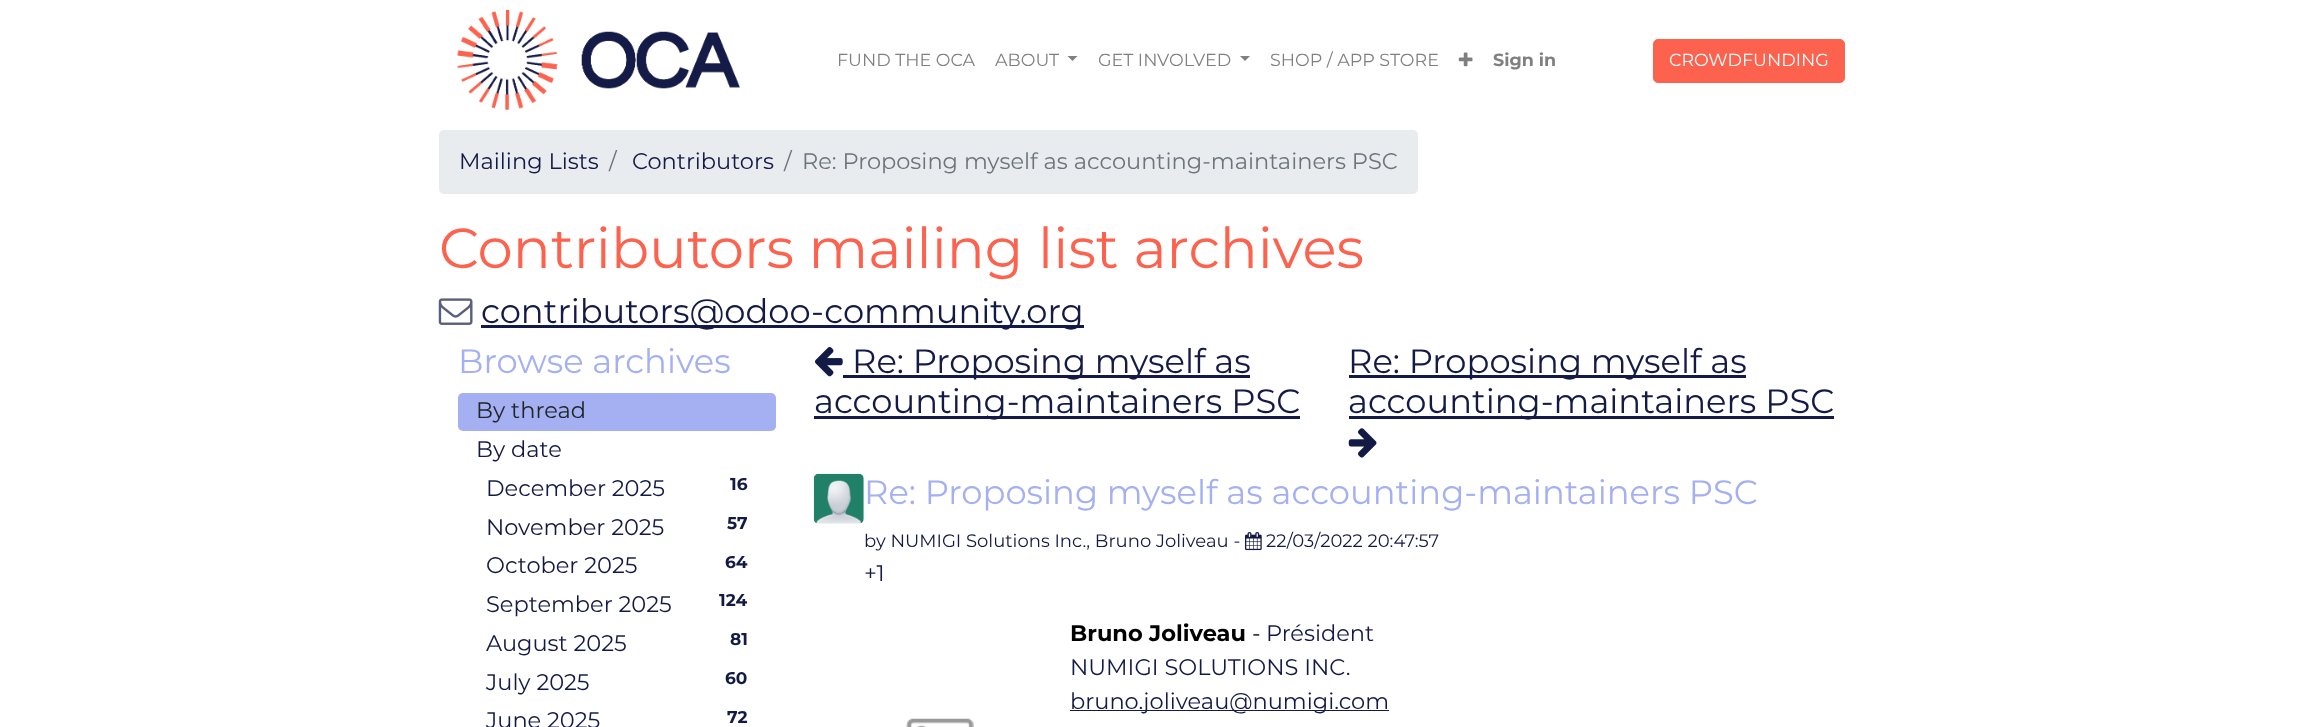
<svg xmlns="http://www.w3.org/2000/svg" width="2302" height="727">
<rect width="100%" height="100%" fill="#fff"/>
<image x="457" y="10" width="283" height="100" href="media/1.png"/>
<text x="837" y="66" style="font-family:Montserrat;font-size:17.5px;fill:#808080">FUND THE OCA</text>
<text x="995" y="66" style="font-family:Montserrat;font-size:17.5px;fill:#808080">ABOUT</text>
<path d="M1067.5 56h10l-5 5z" fill="#808080"/>
<text x="1098" y="66" style="font-family:Montserrat;font-size:17.5px;fill:#808080">GET INVOLVED</text>
<path d="M1240 56h10l-5 5z" fill="#808080"/>
<text x="1270" y="66" style="font-family:Montserrat;font-size:17.5px;fill:#808080">SHOP / APP STORE</text>
<image x="1458" y="52" width="15" height="15" href="media/2.png"/>
<text x="1493" y="66" style="font-family:Montserrat;font-size:17.5px;font-weight:bold;fill:#808080">Sign in</text>
<rect x="1653.5" y="39.5" width="191" height="43" rx="4.5" fill="#fc624d" stroke="#fc624d"/>
<text x="1669" y="66" style="font-family:Montserrat;font-size:17.5px;fill:#fff">CROWDFUNDING</text>
<rect x="439" y="130" width="979" height="64" rx="5" fill="#e9ecef"/>
<text x="459" y="169" style="font-family:Montserrat;font-size:22.5px;fill:#141a46">Mailing Lists</text>
<text x="609" y="169" style="font-family:Montserrat;font-size:22.5px;fill:#6c757d">/</text>
<text x="632" y="169" style="font-family:Montserrat;font-size:22.5px;fill:#141a46">Contributors</text>
<text x="784" y="169" style="font-family:Montserrat;font-size:22.5px;fill:#6c757d">/</text>
<text x="802" y="169" style="font-family:Montserrat;font-size:22.5px;fill:#6c757d">Re: Proposing myself as accounting-maintainers PSC</text>
<text x="439" y="268" style="font-family:Montserrat;font-size:56.25px;fill:#fc624d">Contributors mailing list archives</text>
<image x="438" y="298" width="35" height="27" href="media/3.png"/>
<rect x="481" y="325" width="603" height="3" fill="#141a46"/>
<text x="481" y="323" style="font-family:Montserrat;font-size:33.75px;fill:#141a46">contributors@odoo-community.org</text>
<text x="458" y="373" style="font-family:Montserrat;font-size:33.75px;fill:#a4b0f1">Browse archives</text>
<rect x="458" y="393" width="318" height="38" rx="5" fill="#a4b0f1"/>
<text x="476" y="418" style="font-family:Montserrat;font-size:22.5px;fill:#212529">By thread</text>
<text x="476" y="457" style="font-family:Montserrat;font-size:22.5px;fill:#141a46">By date</text>
<text x="486" y="496" style="font-family:Montserrat;font-size:22.5px;fill:#141a46">December 2025</text>
<text x="730" y="490" style="font-family:Montserrat;font-size:17px;font-weight:bold;fill:#141a46">16</text>
<text x="486" y="535" style="font-family:Montserrat;font-size:22.5px;fill:#141a46">November 2025</text>
<text x="727" y="529" style="font-family:Montserrat;font-size:17px;font-weight:bold;fill:#141a46">57</text>
<text x="486" y="573" style="font-family:Montserrat;font-size:22.5px;fill:#141a46">October 2025</text>
<text x="725" y="568" style="font-family:Montserrat;font-size:17px;font-weight:bold;fill:#141a46">64</text>
<text x="486" y="612" style="font-family:Montserrat;font-size:22.5px;fill:#141a46">September 2025</text>
<text x="719" y="606" style="font-family:Montserrat;font-size:17px;font-weight:bold;fill:#141a46">124</text>
<text x="486" y="651" style="font-family:Montserrat;font-size:22.5px;fill:#141a46">August 2025</text>
<text x="730" y="645" style="font-family:Montserrat;font-size:17px;font-weight:bold;fill:#141a46">81</text>
<text x="486" y="690" style="font-family:Montserrat;font-size:22.5px;fill:#141a46">July 2025</text>
<text x="725" y="684" style="font-family:Montserrat;font-size:17px;font-weight:bold;fill:#141a46">60</text>
<text x="486" y="728" style="font-family:Montserrat;font-size:22.5px;fill:#141a46">June 2025</text>
<text x="727" y="723" style="font-family:Montserrat;font-size:17px;font-weight:bold;fill:#141a46">72</text>
<image x="815" y="347" width="28" height="30" href="media/4.png"/>
<rect x="843" y="375" width="407" height="3" fill="#141a46"/>
<text x="852" y="373" style="font-family:Montserrat;font-size:33.75px;fill:#141a46">Re: Proposing myself as</text>
<rect x="814" y="416" width="486" height="3" fill="#141a46"/>
<text x="814" y="413" style="font-family:Montserrat;font-size:33.75px;fill:#141a46">accounting-maintainers PSC</text>
<rect x="1349" y="375" width="397" height="3" fill="#141a46"/>
<text x="1348" y="373" style="font-family:Montserrat;font-size:33.75px;fill:#141a46">Re: Proposing myself as</text>
<rect x="1349" y="416" width="485" height="3" fill="#141a46"/>
<text x="1348" y="413" style="font-family:Montserrat;font-size:33.75px;fill:#141a46">accounting-maintainers PSC</text>
<image x="1348" y="428" width="29" height="30" href="media/5.png"/>
<image x="813" y="473" width="51" height="51" href="media/6.png"/>
<text x="864" y="504" style="font-family:Montserrat;font-size:33.75px;fill:#a4b0f1">Re: Proposing myself as accounting-maintainers PSC</text>
<text x="864" y="547" style="font-family:Montserrat;font-size:18px;fill:#141a46">by NUMIGI Solutions Inc., Bruno Joliveau -</text>
<image x="1245" y="532" width="17" height="19" href="media/7.png"/>
<text x="1266" y="547" style="font-family:Montserrat;font-size:18px;fill:#141a46">22/03/2022 20:47:57</text>
<text x="864" y="581" style="font-family:Montserrat;font-size:22.5px;fill:#141a46">+1</text>
<text x="1070" y="641" style="font-family:Montserrat;font-size:22.5px;font-weight:bold;fill:#000">Bruno Joliveau</text>
<text x="1252" y="641" style="font-family:Montserrat;font-size:22.5px;fill:#000">-</text>
<text x="1266" y="641" style="font-family:Montserrat;font-size:22.5px;fill:#141a46">Président</text>
<text x="1070" y="675" style="font-family:Montserrat;font-size:22.5px;fill:#141a46">NUMIGI SOLUTIONS INC.</text>
<rect x="1070" y="710" width="319" height="1" fill="#141a46"/>
<text x="1070" y="709" style="font-family:Montserrat;font-size:22.5px;fill:#141a46">bruno.joliveau@numigi.com</text>
<image x="906" y="718" width="68" height="9" href="media/8.png"/>
</svg>
